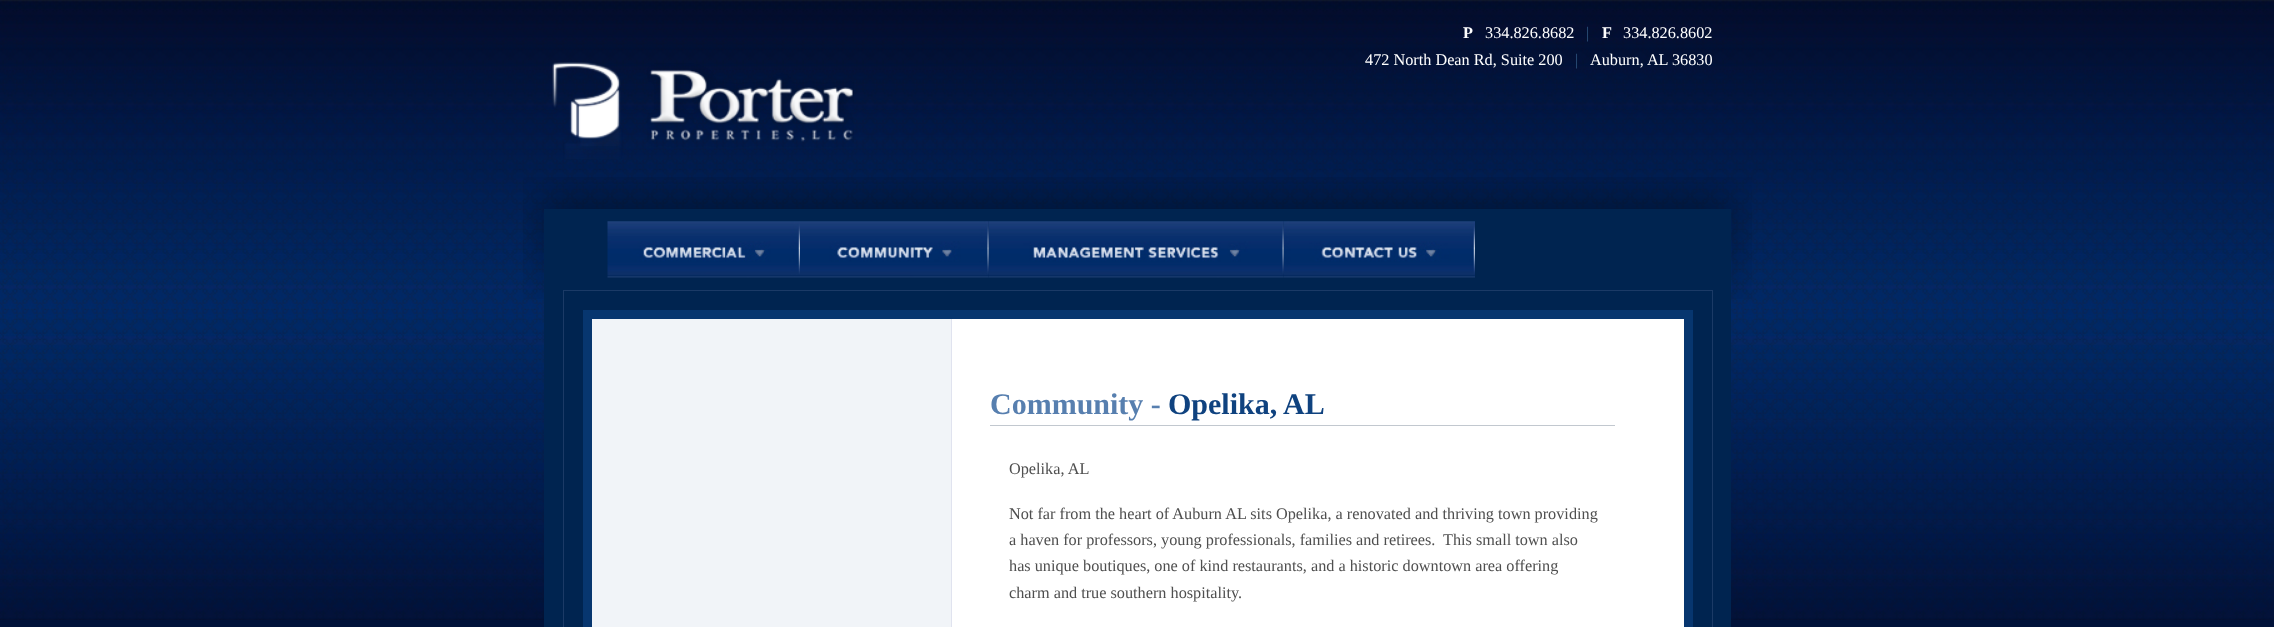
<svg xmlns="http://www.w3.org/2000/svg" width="2274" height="627">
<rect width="100%" height="100%" fill="#fff"/>
<image x="0" y="0" width="2274" height="627" href="media/1.png"/>
<image x="523" y="177" width="1229" height="122" href="media/2.png"/>
<text x="1463" y="38" style="font-family:Liberation Serif;font-size:16.25px;font-weight:bold;fill:#fff">P</text>
<text x="1485" y="38" style="font-family:Liberation Serif;font-size:16.25px;fill:#fff">334.826.8682</text>
<text x="1586" y="38" style="font-family:Liberation Serif;font-size:16.25px;fill:#2f567f">|</text>
<text x="1602" y="38" style="font-family:Liberation Serif;font-size:16.25px;font-weight:bold;fill:#fff">F</text>
<text x="1623" y="38" style="font-family:Liberation Serif;font-size:16.25px;fill:#fff">334.826.8602</text>
<text x="1365" y="65" style="font-family:Liberation Serif;font-size:16.25px;fill:#fff">472 North Dean Rd, Suite 200</text>
<text x="1575" y="65" style="font-family:Liberation Serif;font-size:16.25px;fill:#2f567f">|</text>
<text x="1590" y="65" style="font-family:Liberation Serif;font-size:16.25px;fill:#fff">Auburn, AL 36830</text>
<image x="552" y="62" width="302" height="97" href="media/3.png"/>
<rect x="544" y="209" width="1187" height="418" fill="#002450"/>
<image x="607" y="221" width="193" height="57" href="media/4.png"/>
<image x="800" y="221" width="189" height="57" href="media/5.png"/>
<image x="988" y="221" width="296" height="57" href="media/6.png"/>
<image x="1283" y="221" width="192" height="57" href="media/7.png"/>
<rect x="563.5" y="290.5" width="1149" height="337" fill="none" stroke="#1b3a66"/>
<rect x="592" y="319" width="359" height="308" fill="#f1f4f8"/>
<rect x="587.5" y="314.5" width="1101" height="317" fill="none" stroke="#07366f" stroke-width="9"/>
<rect x="952" y="319" width="732" height="308" fill="#fff"/>
<rect x="951" y="319" width="1" height="308" fill="#e0e3ef"/>
<rect x="990" y="425" width="625" height="1" fill="#c2c8cf"/>
<text x="990" y="414" style="font-family:Liberation Serif;font-size:30px;font-weight:bold;fill:#577faf">Community -</text>
<text x="1168" y="414" style="font-family:Liberation Serif;font-size:30px;font-weight:bold;fill:#0f427f">Opelika, AL</text>
<text x="1009" y="474" style="font-family:Liberation Serif;font-size:16.25px;fill:#4f4f4f">Opelika, AL</text>
<text x="1009" y="519" style="font-family:Liberation Serif;font-size:16.25px;fill:#4f4f4f">Not far from the heart of Auburn AL sits Opelika, a renovated and thriving town providing</text>
<text x="1009" y="545" style="font-family:Liberation Serif;font-size:16.25px;fill:#4f4f4f">a haven for professors, young professionals, families and retirees.</text>
<text x="1443" y="545" style="font-family:Liberation Serif;font-size:16.25px;fill:#4f4f4f">This small town also</text>
<text x="1009" y="571" style="font-family:Liberation Serif;font-size:16.25px;fill:#4f4f4f">has unique boutiques, one of kind restaurants, and a historic downtown area offering</text>
<text x="1009" y="598" style="font-family:Liberation Serif;font-size:16.25px;fill:#4f4f4f">charm and true southern hospitality.</text>
</svg>
